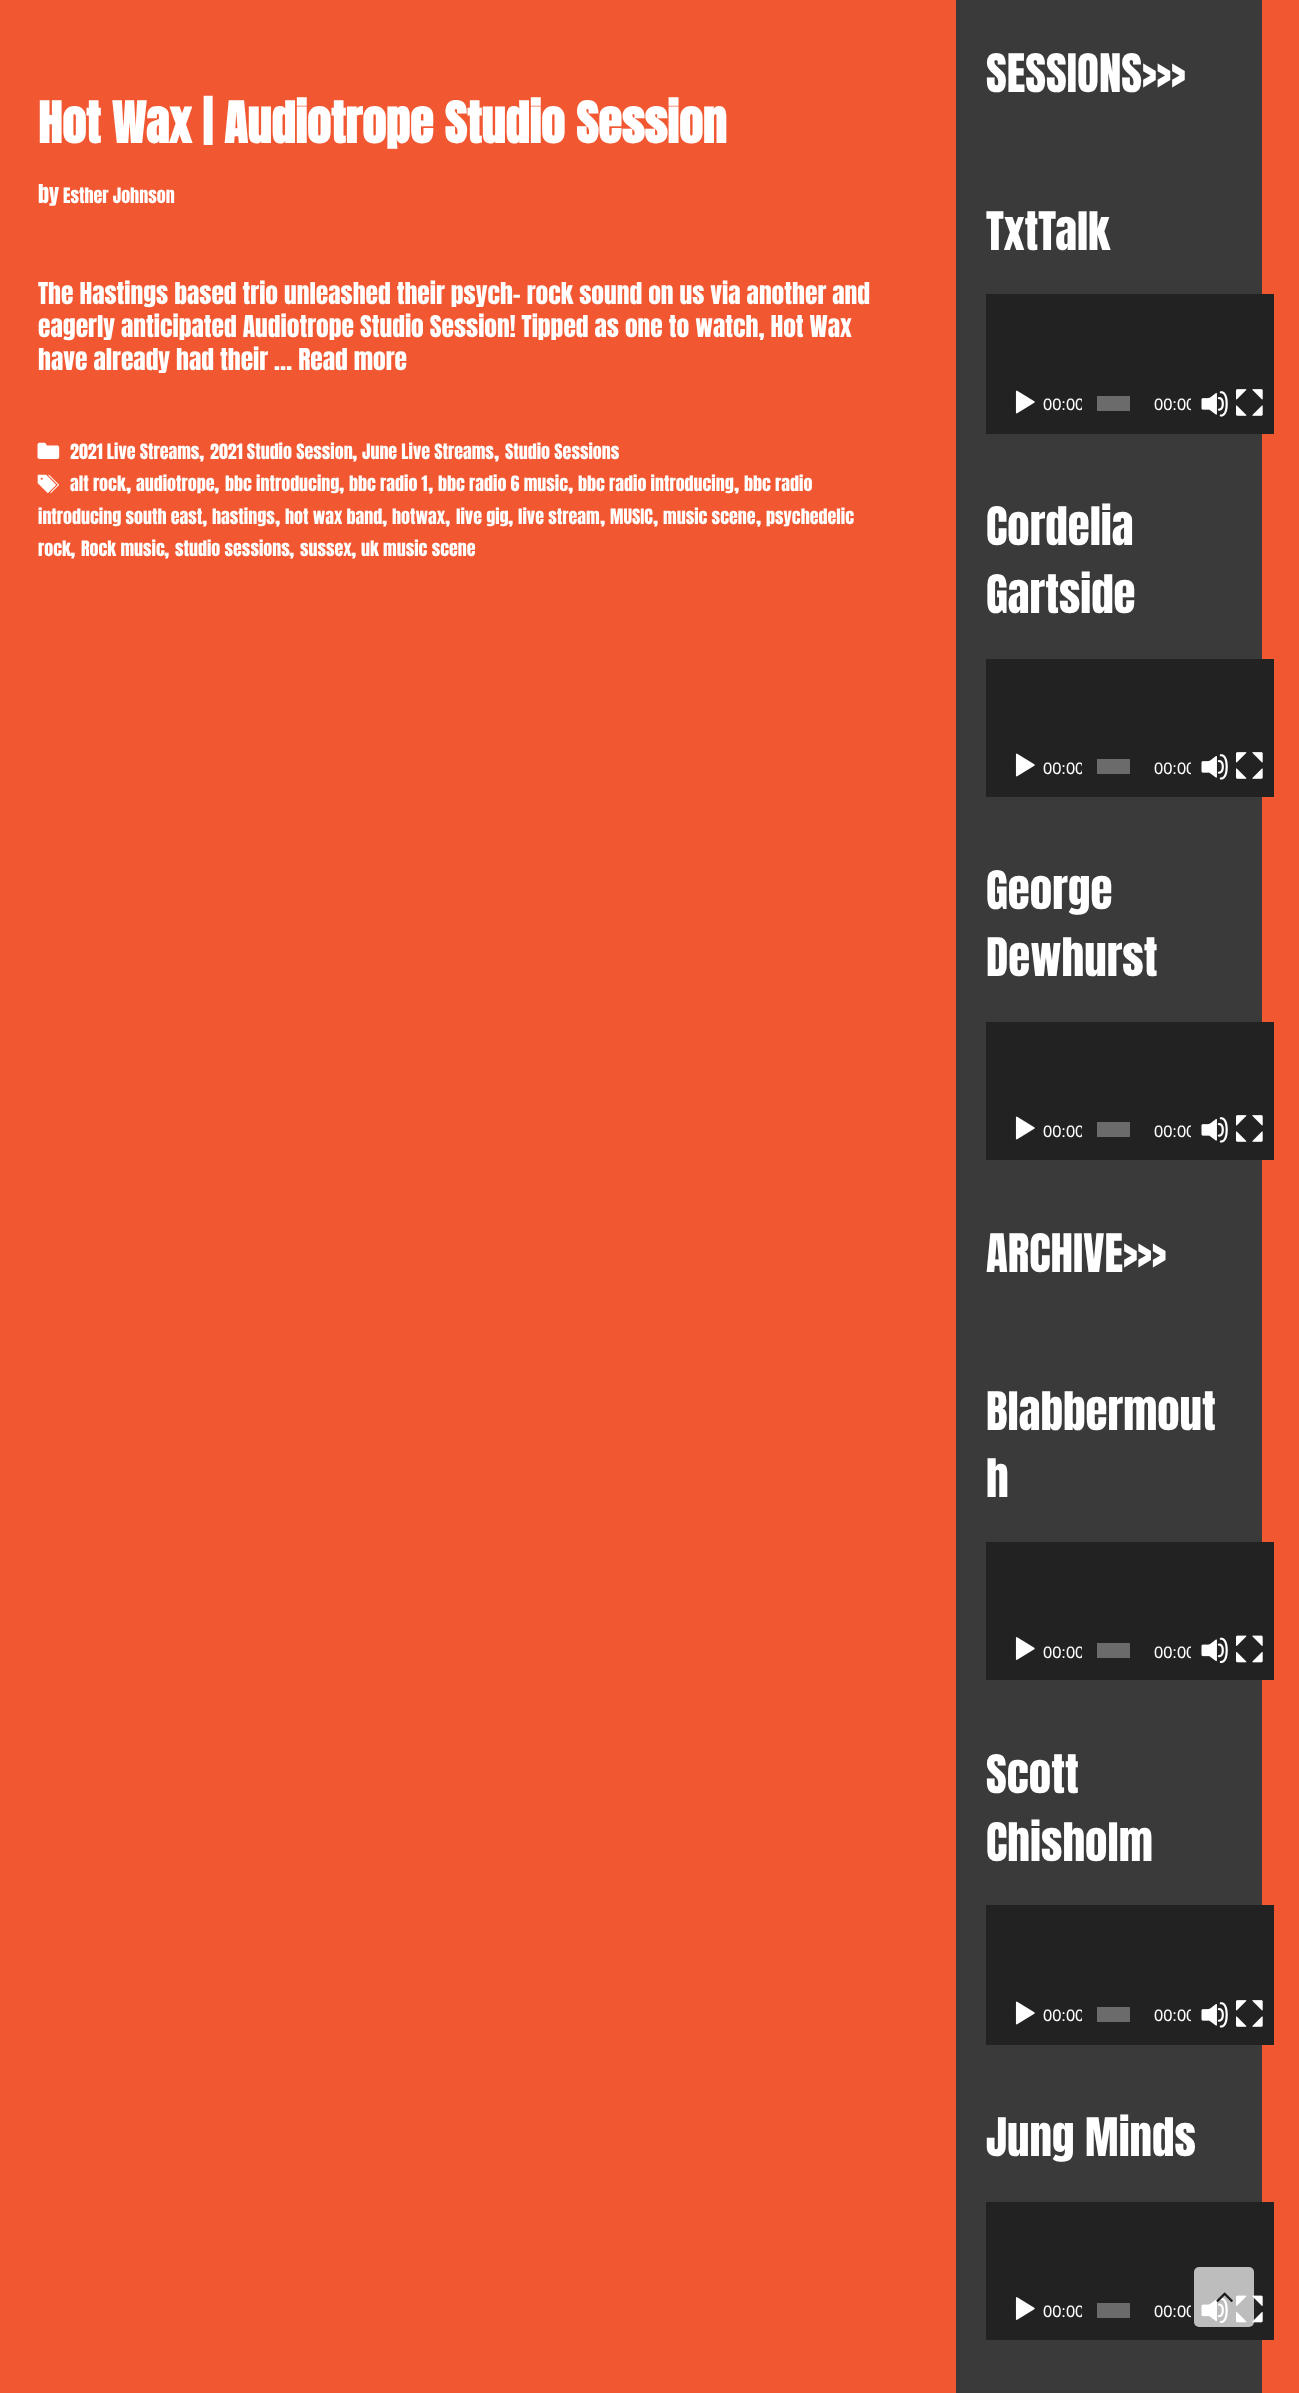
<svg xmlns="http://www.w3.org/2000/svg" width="1299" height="2393">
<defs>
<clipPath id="clip1"><rect x="1034" y="374" width="48" height="60"/></clipPath>
<clipPath id="clip2"><rect x="1145" y="374" width="46" height="60"/></clipPath>
<clipPath id="clip3"><rect x="1034" y="737" width="48" height="60"/></clipPath>
<clipPath id="clip4"><rect x="1145" y="737" width="46" height="60"/></clipPath>
<clipPath id="clip5"><rect x="1034" y="1100" width="48" height="60"/></clipPath>
<clipPath id="clip6"><rect x="1145" y="1100" width="46" height="60"/></clipPath>
<clipPath id="clip7"><rect x="1034" y="1620" width="48" height="60"/></clipPath>
<clipPath id="clip8"><rect x="1145" y="1620" width="46" height="60"/></clipPath>
<clipPath id="clip9"><rect x="1034" y="1985" width="48" height="60"/></clipPath>
<clipPath id="clip10"><rect x="1145" y="1985" width="46" height="60"/></clipPath>
<clipPath id="clip11"><rect x="1034" y="2280" width="48" height="60"/></clipPath>
<clipPath id="clip12"><rect x="1145" y="2280" width="46" height="60"/></clipPath>
</defs>
<rect width="100%" height="100%" fill="#f15731"/>
<text x="38" y="143" style="font-family:Anton;font-size:48px;font-weight:bold;fill:#fff">Hot Wax | Audiotrope Studio Session</text>
<text x="38" y="203" style="font-family:Anton;font-size:22px;fill:#fff">by</text>
<text x="63" y="203" style="font-family:Anton;font-size:18px;fill:#fff">Esther Johnson</text>
<text x="38" y="304" style="font-family:Anton;font-size:25.5px;fill:#fff">The Hastings based trio unleashed their psych- rock sound on us via another and</text>
<text x="38" y="337" style="font-family:Anton;font-size:25.5px;fill:#fff">eagerly anticipated Audiotrope Studio Session! Tipped as one to watch, Hot Wax</text>
<text x="38" y="370" style="font-family:Anton;font-size:25.5px;fill:#fff">have already had their … Read more</text>
<image x="37" y="442" width="23" height="17" href="media/1.png"/>
<text x="70" y="459" style="font-family:Anton;font-size:18px;fill:#fff">2021 Live Streams</text>
<text x="199" y="459" style="font-family:Anton;font-size:22px;fill:#fff">,</text>
<text x="210" y="459" style="font-family:Anton;font-size:18px;fill:#fff">2021 Studio Session</text>
<text x="352" y="459" style="font-family:Anton;font-size:22px;fill:#fff">,</text>
<text x="362" y="459" style="font-family:Anton;font-size:18px;fill:#fff">June Live Streams</text>
<text x="494" y="459" style="font-family:Anton;font-size:22px;fill:#fff">,</text>
<text x="505" y="459" style="font-family:Anton;font-size:18px;fill:#fff">Studio Sessions</text>
<image x="37" y="474" width="22" height="19" href="media/2.png"/>
<text x="70" y="491" style="font-family:Anton;font-size:18px;fill:#fff">alt rock</text>
<text x="126" y="491" style="font-family:Anton;font-size:22px;fill:#fff">,</text>
<text x="136" y="491" style="font-family:Anton;font-size:18px;fill:#fff">audiotrope</text>
<text x="214" y="491" style="font-family:Anton;font-size:22px;fill:#fff">,</text>
<text x="225" y="491" style="font-family:Anton;font-size:18px;fill:#fff">bbc introducing</text>
<text x="339" y="491" style="font-family:Anton;font-size:22px;fill:#fff">,</text>
<text x="349" y="491" style="font-family:Anton;font-size:18px;fill:#fff">bbc radio 1</text>
<text x="428" y="491" style="font-family:Anton;font-size:22px;fill:#fff">,</text>
<text x="438" y="491" style="font-family:Anton;font-size:18px;fill:#fff">bbc radio 6 music</text>
<text x="568" y="491" style="font-family:Anton;font-size:22px;fill:#fff">,</text>
<text x="578" y="491" style="font-family:Anton;font-size:18px;fill:#fff">bbc radio introducing</text>
<text x="734" y="491" style="font-family:Anton;font-size:22px;fill:#fff">,</text>
<text x="744" y="491" style="font-family:Anton;font-size:18px;fill:#fff">bbc radio</text>
<text x="38" y="524" style="font-family:Anton;font-size:18px;fill:#fff">introducing south east</text>
<text x="202" y="524" style="font-family:Anton;font-size:22px;fill:#fff">,</text>
<text x="212" y="524" style="font-family:Anton;font-size:18px;fill:#fff">hastings</text>
<text x="275" y="524" style="font-family:Anton;font-size:22px;fill:#fff">,</text>
<text x="285" y="524" style="font-family:Anton;font-size:18px;fill:#fff">hot wax band</text>
<text x="382" y="524" style="font-family:Anton;font-size:22px;fill:#fff">,</text>
<text x="392" y="524" style="font-family:Anton;font-size:18px;fill:#fff">hotwax</text>
<text x="445" y="524" style="font-family:Anton;font-size:22px;fill:#fff">,</text>
<text x="456" y="524" style="font-family:Anton;font-size:18px;fill:#fff">live gig</text>
<text x="508" y="524" style="font-family:Anton;font-size:22px;fill:#fff">,</text>
<text x="518" y="524" style="font-family:Anton;font-size:18px;fill:#fff">live stream</text>
<text x="600" y="524" style="font-family:Anton;font-size:22px;fill:#fff">,</text>
<text x="610" y="524" style="font-family:Anton;font-size:18px;fill:#fff">MUSIC</text>
<text x="653" y="524" style="font-family:Anton;font-size:22px;fill:#fff">,</text>
<text x="663" y="524" style="font-family:Anton;font-size:18px;fill:#fff">music scene</text>
<text x="756" y="524" style="font-family:Anton;font-size:22px;fill:#fff">,</text>
<text x="766" y="524" style="font-family:Anton;font-size:18px;fill:#fff">psychedelic</text>
<text x="38" y="556" style="font-family:Anton;font-size:18px;fill:#fff">rock</text>
<text x="70" y="556" style="font-family:Anton;font-size:22px;fill:#fff">,</text>
<text x="81" y="556" style="font-family:Anton;font-size:18px;fill:#fff">Rock music</text>
<text x="164" y="556" style="font-family:Anton;font-size:22px;fill:#fff">,</text>
<text x="175" y="556" style="font-family:Anton;font-size:18px;fill:#fff">studio sessions</text>
<text x="289" y="556" style="font-family:Anton;font-size:22px;fill:#fff">,</text>
<text x="300" y="556" style="font-family:Anton;font-size:18px;fill:#fff">sussex</text>
<text x="351" y="556" style="font-family:Anton;font-size:22px;fill:#fff">,</text>
<text x="361" y="556" style="font-family:Anton;font-size:18px;fill:#fff">uk music scene</text>
<rect x="956" width="306" height="2393" fill="#3a3a3a"/>
<text x="986" y="92" style="font-family:Anton;font-size:45px;fill:#fff">SESSIONS&gt;&gt;&gt;</text>
<text x="986" y="250" style="font-family:Anton;font-size:45px;fill:#fff">TxtTalk</text>
<rect x="986" y="294" width="288" height="140" fill="#222"/>
<image x="1015" y="390" width="20" height="24" href="media/3.png"/>
<g clip-path="url(#clip1)">
<text x="1043" y="410" style="font-family:Liberation Sans;font-size:16.5px;fill:#fff">00:00</text>
</g>
<rect x="1097" y="396" width="33" height="15" fill="#6b6b6b"/>
<g clip-path="url(#clip2)">
<text x="1154" y="410" style="font-family:Liberation Sans;font-size:16.5px;fill:#fff">00:00</text>
</g>
<image x="1201" y="391" width="27" height="26" href="media/4.png"/>
<image x="1236" y="389" width="27" height="27" href="media/5.png"/>
<text x="986" y="545" style="font-family:Anton;font-size:45px;fill:#fff">Cordelia</text>
<text x="986" y="613" style="font-family:Anton;font-size:45px;fill:#fff">Gartside</text>
<rect x="986" y="659" width="288" height="138" fill="#222"/>
<image x="1015" y="753" width="20" height="24" href="media/3.png"/>
<g clip-path="url(#clip3)">
<text x="1043" y="774" style="font-family:Liberation Sans;font-size:16.5px;fill:#fff">00:00</text>
</g>
<rect x="1097" y="759" width="33" height="15" fill="#6b6b6b"/>
<g clip-path="url(#clip4)">
<text x="1154" y="774" style="font-family:Liberation Sans;font-size:16.5px;fill:#fff">00:00</text>
</g>
<image x="1201" y="754" width="27" height="26" href="media/4.png"/>
<image x="1236" y="752" width="27" height="27" href="media/5.png"/>
<text x="986" y="909" style="font-family:Anton;font-size:45px;fill:#fff">George</text>
<text x="986" y="976" style="font-family:Anton;font-size:45px;fill:#fff">Dewhurst</text>
<rect x="986" y="1022" width="288" height="138" fill="#222"/>
<image x="1015" y="1116" width="20" height="24" href="media/3.png"/>
<g clip-path="url(#clip5)">
<text x="1043" y="1137" style="font-family:Liberation Sans;font-size:16.5px;fill:#fff">00:00</text>
</g>
<rect x="1097" y="1122" width="33" height="15" fill="#6b6b6b"/>
<g clip-path="url(#clip6)">
<text x="1154" y="1137" style="font-family:Liberation Sans;font-size:16.5px;fill:#fff">00:00</text>
</g>
<image x="1201" y="1117" width="27" height="26" href="media/4.png"/>
<image x="1236" y="1115" width="27" height="27" href="media/5.png"/>
<text x="986" y="1272" style="font-family:Anton;font-size:45px;fill:#fff">ARCHIVE&gt;&gt;&gt;</text>
<text x="986" y="1430" style="font-family:Anton;font-size:45px;fill:#fff">Blabbermout</text>
<text x="986" y="1497" style="font-family:Anton;font-size:45px;fill:#fff">h</text>
<rect x="986" y="1542" width="288" height="138" fill="#222"/>
<image x="1015" y="1637" width="20" height="23" href="media/6.png"/>
<g clip-path="url(#clip7)">
<text x="1043" y="1658" style="font-family:Liberation Sans;font-size:16.5px;fill:#fff">00:00</text>
</g>
<rect x="1097" y="1643" width="33" height="15" fill="#6b6b6b"/>
<g clip-path="url(#clip8)">
<text x="1154" y="1658" style="font-family:Liberation Sans;font-size:16.5px;fill:#fff">00:00</text>
</g>
<image x="1201" y="1637" width="27" height="27" href="media/7.png"/>
<image x="1236" y="1635" width="27" height="28" href="media/8.png"/>
<text x="986" y="1793" style="font-family:Anton;font-size:45px;fill:#fff">Scott</text>
<text x="986" y="1861" style="font-family:Anton;font-size:45px;fill:#fff">Chisholm</text>
<rect x="986" y="1905" width="288" height="140" fill="#222"/>
<image x="1015" y="2001" width="20" height="24" href="media/3.png"/>
<g clip-path="url(#clip9)">
<text x="1043" y="2021" style="font-family:Liberation Sans;font-size:16.5px;fill:#fff">00:00</text>
</g>
<rect x="1097" y="2007" width="33" height="15" fill="#6b6b6b"/>
<g clip-path="url(#clip10)">
<text x="1154" y="2021" style="font-family:Liberation Sans;font-size:16.5px;fill:#fff">00:00</text>
</g>
<image x="1201" y="2002" width="27" height="26" href="media/4.png"/>
<image x="1236" y="2000" width="27" height="27" href="media/5.png"/>
<text x="986" y="2156" style="font-family:Anton;font-size:45px;fill:#fff">Jung Minds</text>
<rect x="986" y="2202" width="288" height="138" fill="#222"/>
<image x="1015" y="2297" width="20" height="23" href="media/6.png"/>
<g clip-path="url(#clip11)">
<text x="1043" y="2317" style="font-family:Liberation Sans;font-size:16.5px;fill:#fff">00:00</text>
</g>
<rect x="1097" y="2303" width="33" height="15" fill="#6b6b6b"/>
<g clip-path="url(#clip12)">
<text x="1154" y="2317" style="font-family:Liberation Sans;font-size:16.5px;fill:#fff">00:00</text>
</g>
<image x="1201" y="2297" width="27" height="27" href="media/7.png"/>
<image x="1236" y="2295" width="27" height="28" href="media/8.png"/>
<rect x="1194" y="2267" width="60" height="60" rx="5" fill="#ffffffb3"/>
<image x="1216" y="2292" width="17" height="11" href="media/9.png"/>
</svg>
